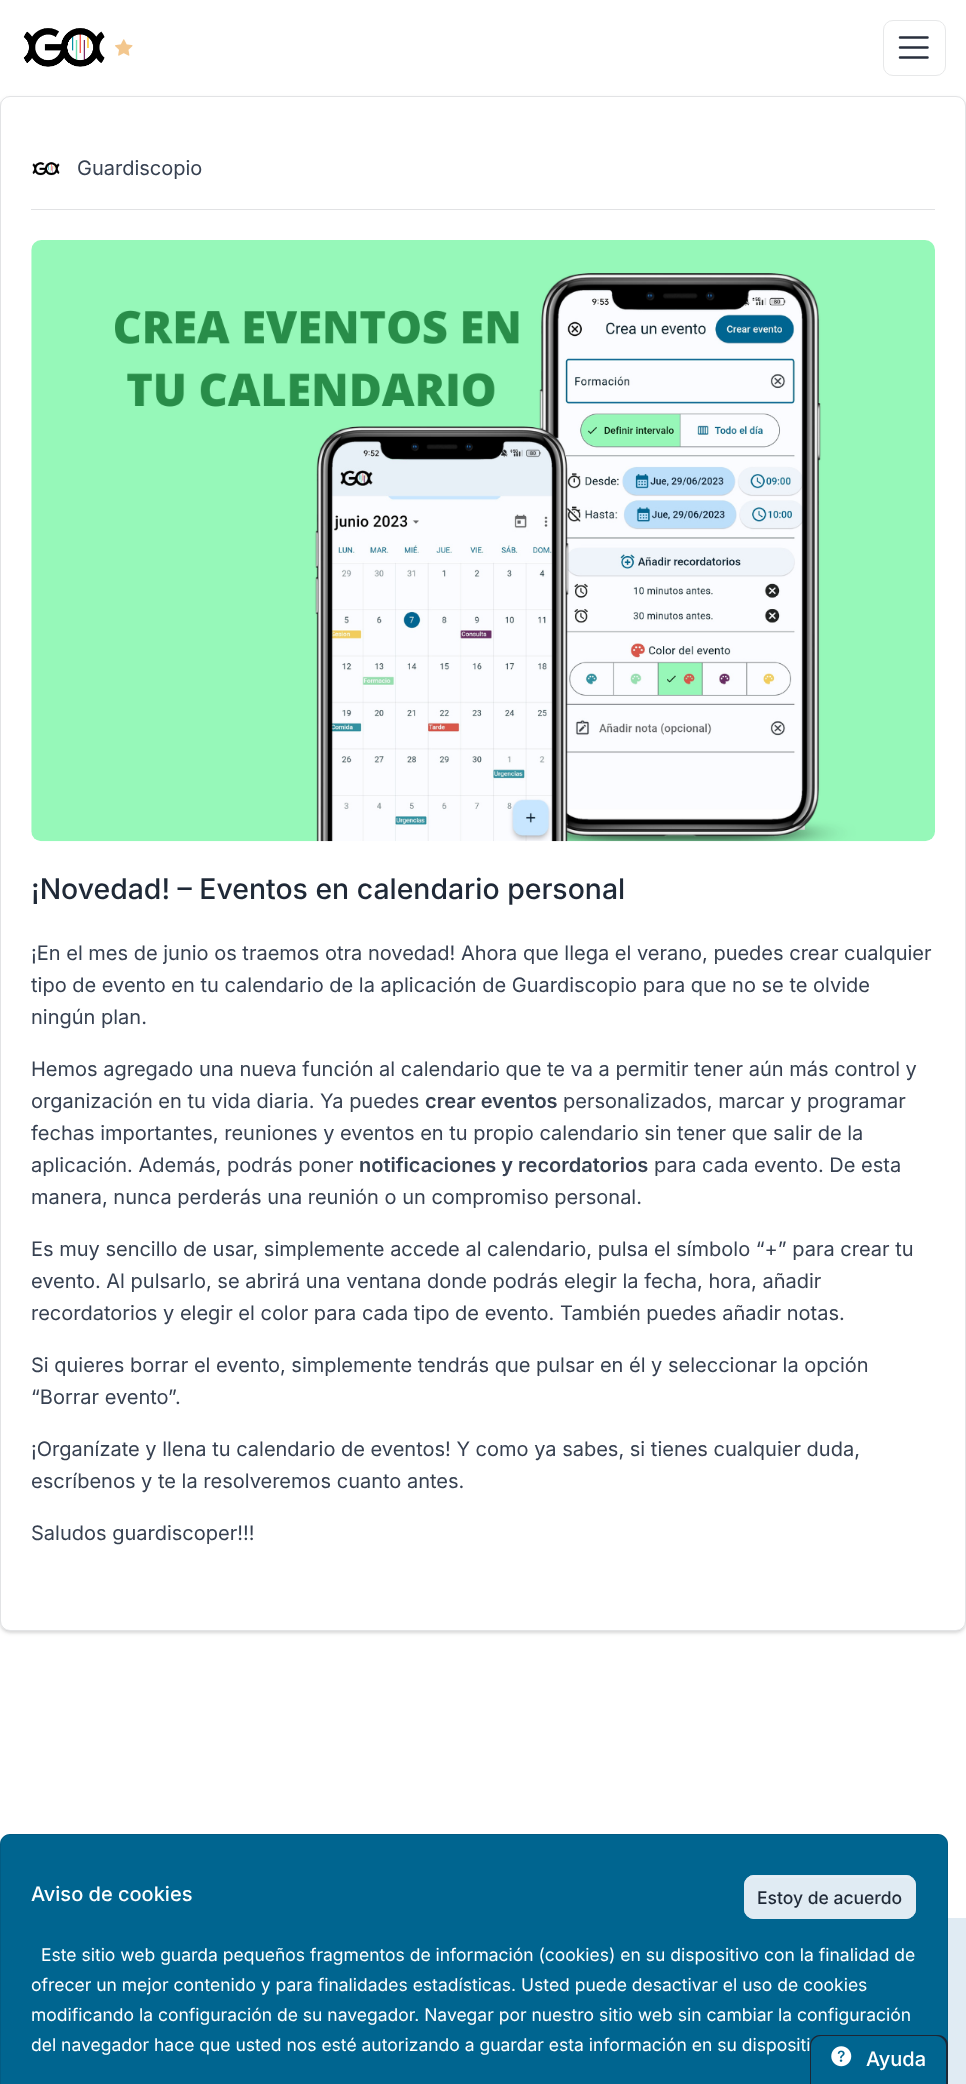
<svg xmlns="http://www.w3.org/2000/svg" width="966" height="2084">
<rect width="100%" height="100%" fill="#fff"/>
<image x="23" y="28" width="82" height="39" href="media/1.png"/>
<image x="115" y="39" width="18" height="17" href="media/2.png"/>
<rect x="883.5" y="20.5" width="62" height="55" rx="9.5" fill="none" stroke="#e7e8e9"/>
<path d="M900 37.5h27.5m-27.5 10h27.5m-27.5 10h27.5" fill="none" stroke="#292f3d" stroke-width="2.5" stroke-linecap="round"/>
<rect y="98" width="966" height="1535" rx="10" fill="#0000000f" filter="blur(1px)"/>
<rect y="98" width="966" height="1535" rx="10" fill="#0000001a" filter="blur(2px)"/>
<rect y="96" width="966" height="1535" rx="10" fill="#fff"/>
<rect x="0.5" y="96.5" width="965" height="1534" rx="9.5" fill="none" stroke="#1118271f"/>
<rect x="31" y="209" width="904" height="1" fill="#e1e2e4"/>
<image x="32" y="162" width="28" height="14" href="media/3.png"/>
<text x="77" y="175" style="font-family:Inter;font-size:20px;fill:#374151">Guardiscopio</text>
<image x="31" y="240" width="904" height="602" href="media/4.png"/>
<text x="31" y="899" style="font-family:Inter;font-size:28.4px;font-weight:500;fill:#1f2937">¡Novedad! – Eventos en calendario personal</text>
<text x="31" y="960" style="font-family:Inter;font-size:20px;fill:#374151">¡En el mes de junio os traemos otra novedad! Ahora que llega el verano, puedes crear cualquier</text>
<text x="31" y="992" style="font-family:Inter;font-size:20px;fill:#374151">tipo de evento en tu calendario de la aplicación de Guardiscopio para que no se te olvide</text>
<text x="31" y="1024" style="font-family:Inter;font-size:20px;fill:#374151">ningún plan.</text>
<text x="31" y="1076" style="font-family:Inter;font-size:20px;fill:#374151">Hemos agregado una nueva función al calendario que te va a permitir tener aún más control y</text>
<text x="31" y="1108" style="font-family:Inter;font-size:20px;fill:#374151">organización en tu vida diaria. Ya puedes</text>
<text x="425" y="1108" style="font-family:Inter;font-size:20px;font-weight:600;fill:#374151">crear eventos</text>
<text x="563" y="1108" style="font-family:Inter;font-size:20px;fill:#374151">personalizados, marcar y programar</text>
<text x="31" y="1140" style="font-family:Inter;font-size:20px;fill:#374151">fechas importantes, reuniones y eventos en tu propio calendario sin tener que salir de la</text>
<text x="31" y="1172" style="font-family:Inter;font-size:20px;fill:#374151">aplicación. Además, podrás poner</text>
<text x="359" y="1172" style="font-family:Inter;font-size:20px;font-weight:600;fill:#374151">notificaciones y recordatorios</text>
<text x="654" y="1172" style="font-family:Inter;font-size:20px;fill:#374151">para cada evento. De esta</text>
<text x="31" y="1204" style="font-family:Inter;font-size:20px;fill:#374151">manera, nunca perderás una reunión o un compromiso personal.</text>
<text x="31" y="1256" style="font-family:Inter;font-size:20px;fill:#374151">Es muy sencillo de usar, simplemente accede al calendario, pulsa el símbolo “+” para crear tu</text>
<text x="31" y="1288" style="font-family:Inter;font-size:20px;fill:#374151">evento. Al pulsarlo, se abrirá una ventana donde podrás elegir la fecha, hora, añadir</text>
<text x="31" y="1320" style="font-family:Inter;font-size:20px;fill:#374151">recordatorios y elegir el color para cada tipo de evento. También puedes añadir notas.</text>
<text x="31" y="1372" style="font-family:Inter;font-size:20px;fill:#374151">Si quieres borrar el evento, simplemente tendrás que pulsar en él y seleccionar la opción</text>
<text x="31" y="1404" style="font-family:Inter;font-size:20px;fill:#374151">“Borrar evento”.</text>
<text x="31" y="1456" style="font-family:Inter;font-size:20px;fill:#374151">¡Organízate y llena tu calendario de eventos! Y como ya sabes, si tienes cualquier duda,</text>
<text x="31" y="1488" style="font-family:Inter;font-size:20px;fill:#374151">escríbenos y te la resolveremos cuanto antes.</text>
<text x="31" y="1540" style="font-family:Inter;font-size:20px;fill:#374151">Saludos guardiscoper!!!</text>
<path d="M10 1834h928c5.5 0 10 4.5 10 10v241h-948v-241c0-5.5 4.5-10 10-10z" fill="#006590"/>
<path d="M10 1834.5h928c5 0 9.5 4.5 9.5 9.5v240.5h-947v-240.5c0-5 4.5-9.5 9.5-9.5z" fill="none" stroke="#1118271f"/>
<text x="31" y="1901" style="font-family:Inter;font-size:20px;font-weight:500;fill:#fff">Aviso de cookies</text>
<rect x="744" y="1875" width="172" height="44" rx="10" fill="#e0ebf3"/>
<path d="M754 1878h152c5 0 9 3 9 8c0-16-27-10-34-10h-102c-7 0-34-6-34 10c0-5 4-8 9-8z" fill="#e5eef5"/>
<rect x="744.5" y="1875.5" width="171" height="43" rx="9.5" fill="none" stroke="#e0ebf3"/>
<text x="757" y="1904" style="font-family:Inter;font-size:17.5px;font-weight:500;fill:#1f2937">Estoy de acuerdo</text>
<text x="41" y="1961" style="font-family:Inter;font-size:17.5px;fill:#fff">Este sitio web guarda pequeños fragmentos de información (cookies) en su dispositivo con la finalidad de</text>
<text x="31" y="1991" style="font-family:Inter;font-size:17.5px;fill:#fff">ofrecer un mejor contenido y para finalidades estadísticas. Usted puede desactivar el uso de cookies</text>
<text x="31" y="2021" style="font-family:Inter;font-size:17.5px;fill:#fff">modificando la configuración de su navegador. Navegar por nuestro sitio web sin cambiar la configuración</text>
<text x="31" y="2051" style="font-family:Inter;font-size:17.5px;fill:#fff">del navegador hace que usted nos esté autorizando a guardar esta información en su dispositi</text>
<rect x="948" y="1918" width="18" height="166" fill="#e0ebf3"/>
<path d="M820 2035h118c5.5 0 10 4.5 10 10v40h-138v-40c0-5.5 4.5-10 10-10z" fill="#1f2937"/>
<path d="M820 2035.5h118c5 0 9.5 4.5 9.5 9.5v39.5h-137v-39.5c0-5 4.5-9.5 9.5-9.5z" fill="none" stroke="#1118271f"/>
<path d="M821 2036h115c5.5 0 10 4.5 10 10v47h-135v-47c0-5.5 4.5-10 10-10z" fill="#006590"/>
<image x="831" y="2046" width="21" height="21" href="media/5.png"/>
<text x="866" y="2066" style="font-family:Inter;font-size:20px;font-weight:500;fill:#fff">Ayuda</text>
</svg>
